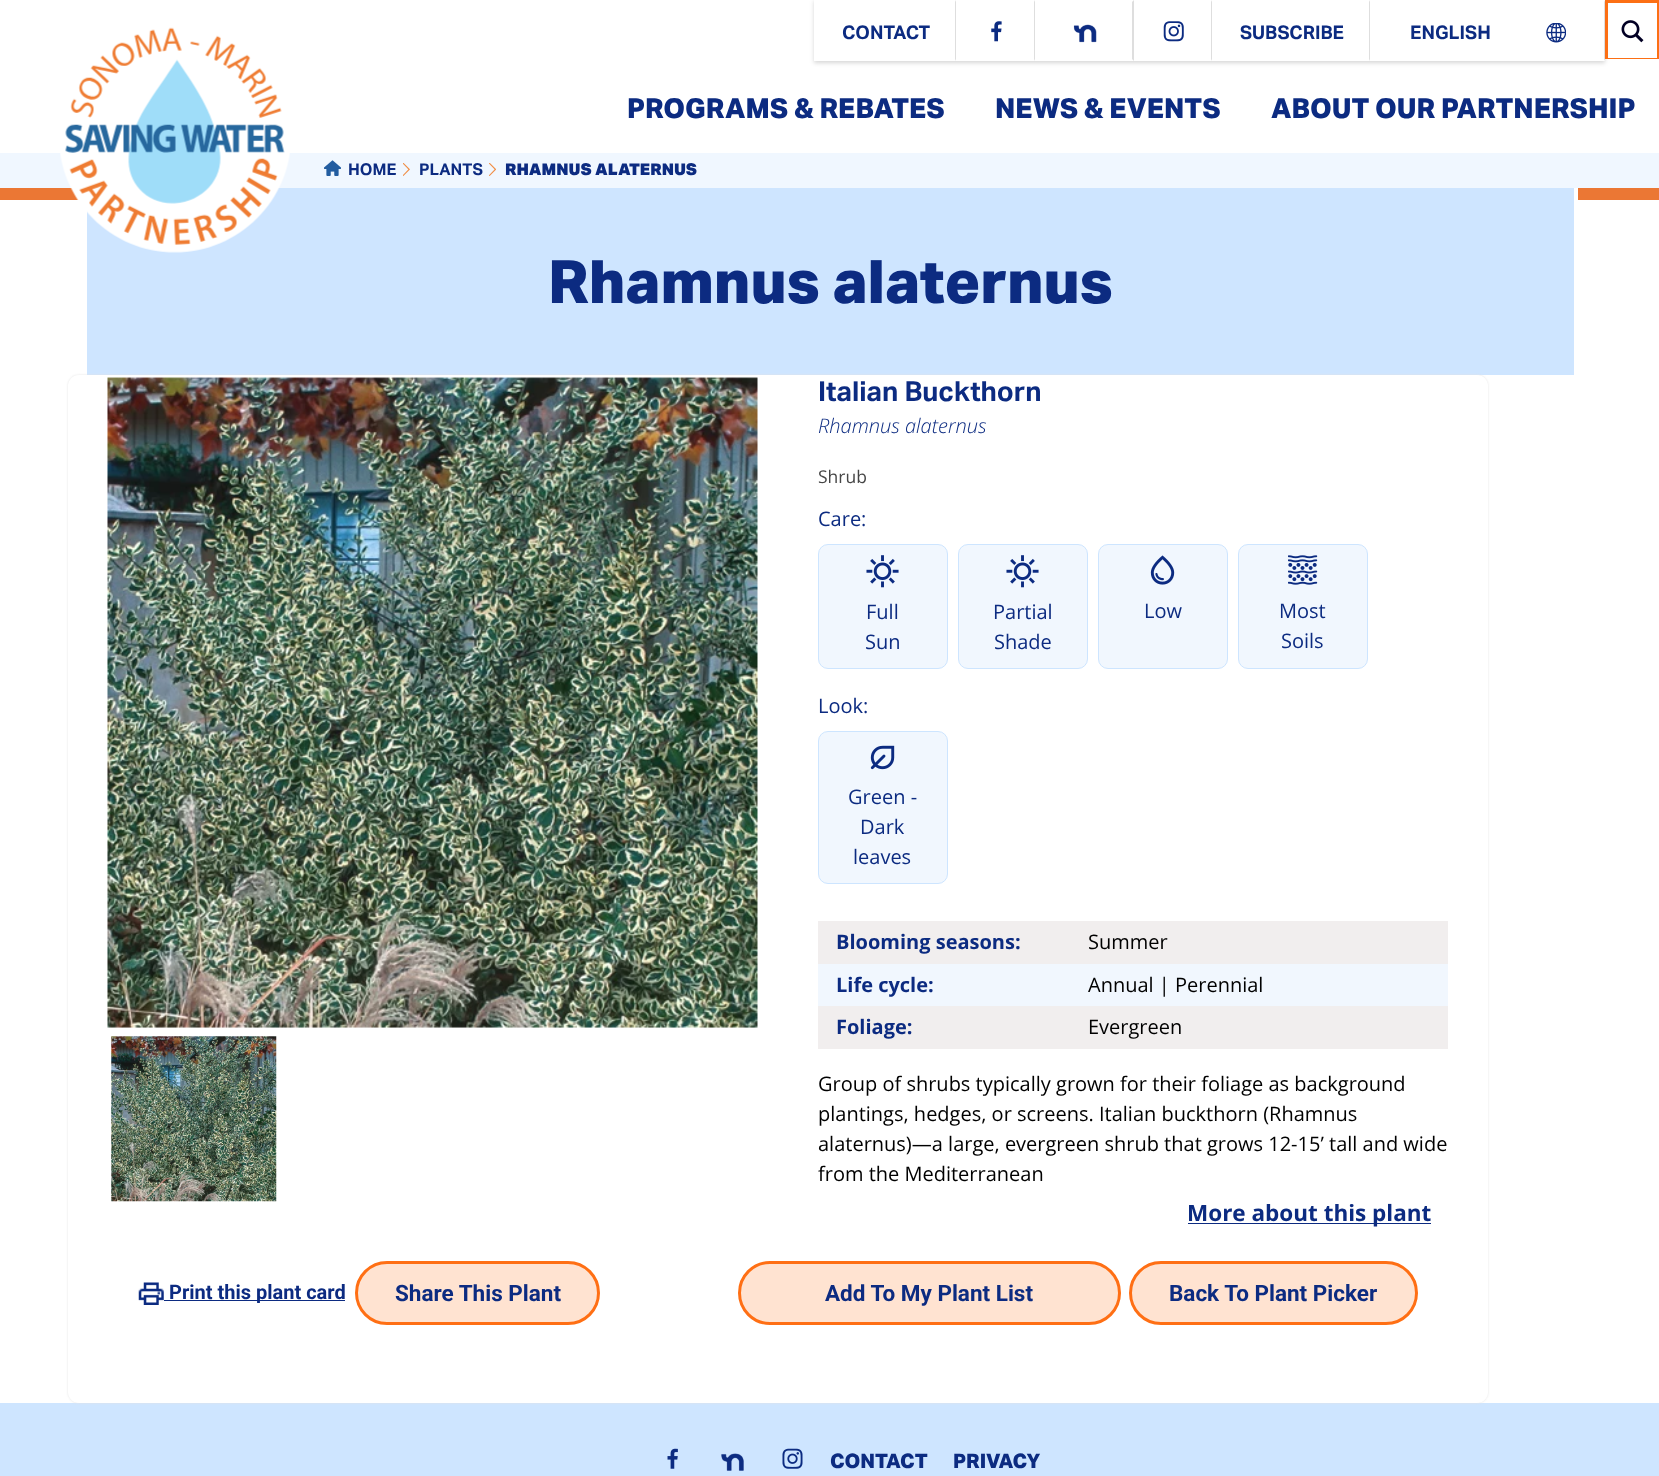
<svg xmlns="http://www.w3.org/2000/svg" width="1659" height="1476">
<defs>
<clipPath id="clip1"><path d="M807 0h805v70h-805zm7 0h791v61h-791z" clip-rule="evenodd"/></clipPath>
<clipPath id="clip2"><rect x="1605" width="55" height="59"/></clipPath>
</defs>
<rect width="100%" height="100%" fill="#fff"/>
<rect y="188" width="1659" height="12" fill="#eb7734"/>
<rect y="153" width="1659" height="35" fill="#f0f7ff"/>
<rect x="87" y="188" width="1487" height="187" fill="#cee5ff"/>
<image x="60" y="27" width="230" height="226" href="media/1.png"/>
<g clip-path="url(#clip1)">
<rect x="814" y="1" width="791" height="62" fill="#00000029" filter="blur(2px)"/>
</g>
<path d="M956 0v61l-1-2v-57z" fill="#dedede"/>
<text x="842" y="39" style="font-family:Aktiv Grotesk;font-size:18.75px;font-weight:bold;fill:#0c2b81">CONTACT</text>
<path d="M1035 0v61l-1-2v-57z" fill="#dedede"/>
<image x="991" y="21" width="11" height="21" href="media/2.png"/>
<path d="M1134 0v61l-2-2v-57z" fill="#dedede"/>
<image x="1073" y="24" width="24" height="19" href="media/3.png"/>
<path d="M1212 0v61l-1-2v-57z" fill="#dedede"/>
<image x="1163" y="21" width="21" height="21" href="media/4.png"/>
<path d="M1370 0v61l-1-2v-57z" fill="#dedede"/>
<text x="1240" y="39" style="font-family:Aktiv Grotesk;font-size:18.75px;font-weight:bold;fill:#0c2b81">SUBSCRIBE</text>
<path d="M1605 0v61l-1-2v-57z" fill="#dedede"/>
<image x="1546" y="23" width="20" height="20" href="media/5.png"/>
<text x="1410" y="39" style="font-family:Aktiv Grotesk;font-size:18.75px;font-weight:bold;fill:#0c2b81">ENGLISH</text>
<g clip-path="url(#clip2)">
<rect x="1606.5" y="1.5" width="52" height="58" fill="none" stroke="#fc6f14" stroke-width="3"/>
</g>
<image x="1621" y="20" width="23" height="23" href="media/6.png"/>
<text x="627" y="118" style="font-family:'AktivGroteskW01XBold';font-size:27.5px;font-weight:bold;fill:#0c2b81">PROGRAMS &amp; REBATES</text>
<text x="995" y="118" style="font-family:'AktivGroteskW01XBold';font-size:27.5px;font-weight:bold;fill:#0c2b81">NEWS &amp; EVENTS</text>
<text x="1271" y="118" style="font-family:'AktivGroteskW01XBold';font-size:27.5px;font-weight:bold;fill:#0c2b81">ABOUT OUR PARTNERSHIP</text>
<image x="324" y="160" width="17" height="16" href="media/7.png"/>
<text x="348" y="175" style="font-family:Aktiv Grotesk;font-size:16.25px;font-weight:bold;fill:#0c2b81">HOME</text>
<image x="403" y="163" width="7" height="13" href="media/8.png"/>
<text x="419" y="175" style="font-family:Aktiv Grotesk;font-size:16.25px;font-weight:bold;fill:#0c2b81">PLANTS</text>
<image x="489" y="163" width="7" height="13" href="media/9.png"/>
<text x="505" y="175" style="font-family:'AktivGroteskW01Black';font-size:16.25px;font-weight:900;fill:#0c2b81">RHAMNUS ALATERNUS</text>
<rect x="1574" y="188" width="4" height="12" fill="#fff"/>
<text x="548" y="303" style="font-family:'AktivGroteskW01XBold';font-size:60px;font-weight:bold;fill:#0c2b81">Rhamnus alaternus</text>
<rect y="1403" width="1659" height="73" fill="#cee5ff"/>
<rect x="68" y="375" width="1420" height="1028" rx="11" fill="#e4e4e4" filter="blur(1px)"/>
<rect x="68" y="375" width="1420" height="1028" rx="11" fill="#fff"/>
<image x="107" y="377" width="651" height="651" href="media/10.png"/>
<image x="111" y="1036" width="166" height="166" href="media/11.png"/>
<text x="818" y="401" style="font-family:Aktiv Grotesk;font-size:27.5px;font-weight:bold;fill:#0c2b81">Italian Buckthorn</text>
<text x="818" y="433" style="font-family:Open Sans;font-size:20px;font-weight:300;font-style:italic;fill:#0c2b81">Rhamnus alaternus</text>
<text x="818" y="483" style="font-family:Open Sans;font-size:17.5px;fill:#464646">Shrub</text>
<text x="818" y="526" style="font-family:Open Sans;font-size:20px;fill:#0c2b81">Care:</text>
<rect x="818.5" y="544.5" width="129" height="124" rx="9.5" fill="#f1f7fe" stroke="#cde5ff"/>
<image x="866" y="555" width="33" height="33" href="media/12.png"/>
<text x="866" y="619" style="font-family:Open Sans;font-size:20px;fill:#0c2b81">Full</text>
<text x="865" y="649" style="font-family:Open Sans;font-size:20px;fill:#0c2b81">Sun</text>
<rect x="958.5" y="544.5" width="129" height="124" rx="9.5" fill="#f1f7fe" stroke="#cde5ff"/>
<image x="1006" y="555" width="33" height="33" href="media/12.png"/>
<text x="993" y="619" style="font-family:Open Sans;font-size:20px;fill:#0c2b81">Partial</text>
<text x="994" y="649" style="font-family:Open Sans;font-size:20px;fill:#0c2b81">Shade</text>
<rect x="1098.5" y="544.5" width="129" height="124" rx="9.5" fill="#f1f7fe" stroke="#cde5ff"/>
<image x="1150" y="555" width="25" height="30" href="media/13.png"/>
<text x="1144" y="618" style="font-family:Open Sans;font-size:20px;fill:#0c2b81">Low</text>
<rect x="1238.5" y="544.5" width="129" height="124" rx="9.5" fill="#f1f7fe" stroke="#cde5ff"/>
<image x="1288" y="555" width="30" height="30" href="media/14.png"/>
<text x="1279" y="618" style="font-family:Open Sans;font-size:20px;fill:#0c2b81">Most</text>
<text x="1281" y="648" style="font-family:Open Sans;font-size:20px;fill:#0c2b81">Soils</text>
<text x="818" y="713" style="font-family:Open Sans;font-size:20px;fill:#0c2b81">Look:</text>
<rect x="818.5" y="731.5" width="129" height="152" rx="9.5" fill="#f1f7fe" stroke="#cde5ff"/>
<image x="870" y="745" width="25" height="25" href="media/15.png"/>
<text x="848" y="804" style="font-family:Open Sans;font-size:20px;fill:#0c2b81">Green -</text>
<text x="860" y="834" style="font-family:Open Sans;font-size:20px;fill:#0c2b81">Dark</text>
<text x="853" y="864" style="font-family:Open Sans;font-size:20px;fill:#0c2b81">leaves</text>
<rect x="818" y="921" width="630" height="43" fill="#f1eeee"/>
<text x="836" y="949" style="font-family:Open Sans;font-size:20px;font-weight:bold;fill:#0c2b81">Blooming seasons:</text>
<text x="1088" y="949" style="font-family:Open Sans;font-size:20px;fill:#000">Summer</text>
<rect x="818" y="964" width="630" height="42" fill="#f1f7fe"/>
<text x="836" y="992" style="font-family:Open Sans;font-size:20px;font-weight:bold;fill:#0c2b81">Life cycle:</text>
<text x="1088" y="992" style="font-family:Open Sans;font-size:20px;fill:#000">Annual | Perennial</text>
<rect x="818" y="1006" width="630" height="43" fill="#f1eeee"/>
<text x="836" y="1034" style="font-family:Open Sans;font-size:20px;font-weight:bold;fill:#0c2b81">Foliage:</text>
<text x="1088" y="1034" style="font-family:Open Sans;font-size:20px;fill:#000">Evergreen</text>
<text x="818" y="1091" style="font-family:Open Sans;font-size:20px;fill:#000">Group of shrubs typically grown for their foliage as background</text>
<text x="818" y="1121" style="font-family:Open Sans;font-size:20px;fill:#000">plantings, hedges, or screens. Italian buckthorn (Rhamnus</text>
<text x="818" y="1151" style="font-family:Open Sans;font-size:20px;fill:#000">alaternus)—a large, evergreen shrub that grows 12-15’ tall and wide</text>
<text x="818" y="1181" style="font-family:Open Sans;font-size:20px;fill:#000">from the Mediterranean</text>
<rect x="1188" y="1223" width="243" height="1" fill="#0c2b81"/>
<text x="1187" y="1221" style="font-family:Open Sans;font-size:22.5px;font-weight:bold;fill:#0c2b81">More about this plant</text>
<image x="138" y="1282" width="26" height="23" href="media/16.png"/>
<rect x="164" y="1300" width="181" height="1" fill="#0c2b81"/>
<text x="169" y="1299" style="font-family:Roboto;font-size:20px;font-weight:bold;fill:#0c2b81">Print this plant card</text>
<rect x="356.5" y="1262.5" width="242" height="61" rx="30.5" fill="#ffe3d1" stroke="#ff6f14" stroke-width="3"/>
<text x="395" y="1301" style="font-family:Roboto;font-size:22.5px;font-weight:bold;fill:#0c2b81">Share This Plant</text>
<rect x="739.5" y="1262.5" width="380" height="61" rx="30.5" fill="#ffe3d1" stroke="#ff6f14" stroke-width="3"/>
<text x="825" y="1301" style="font-family:Roboto;font-size:22.5px;font-weight:bold;fill:#0c2b81">Add To My Plant List</text>
<rect x="1130.5" y="1262.5" width="286" height="61" rx="30.5" fill="#ffe3d1" stroke="#ff6f14" stroke-width="3"/>
<text x="1169" y="1301" style="font-family:Roboto;font-size:22.5px;font-weight:bold;fill:#0c2b81">Back To Plant Picker</text>
<image x="667" y="1448" width="11" height="21" href="media/17.png"/>
<image x="721" y="1453" width="23" height="18" href="media/18.png"/>
<image x="782" y="1448" width="21" height="21" href="media/19.png"/>
<text x="830" y="1468" style="font-family:'AktivGroteskW01XBold';font-size:20px;font-weight:bold;fill:#0c2b81">CONTACT</text>
<text x="953" y="1468" style="font-family:'AktivGroteskW01XBold';font-size:20px;font-weight:bold;fill:#0c2b81">PRIVACY</text>
</svg>
